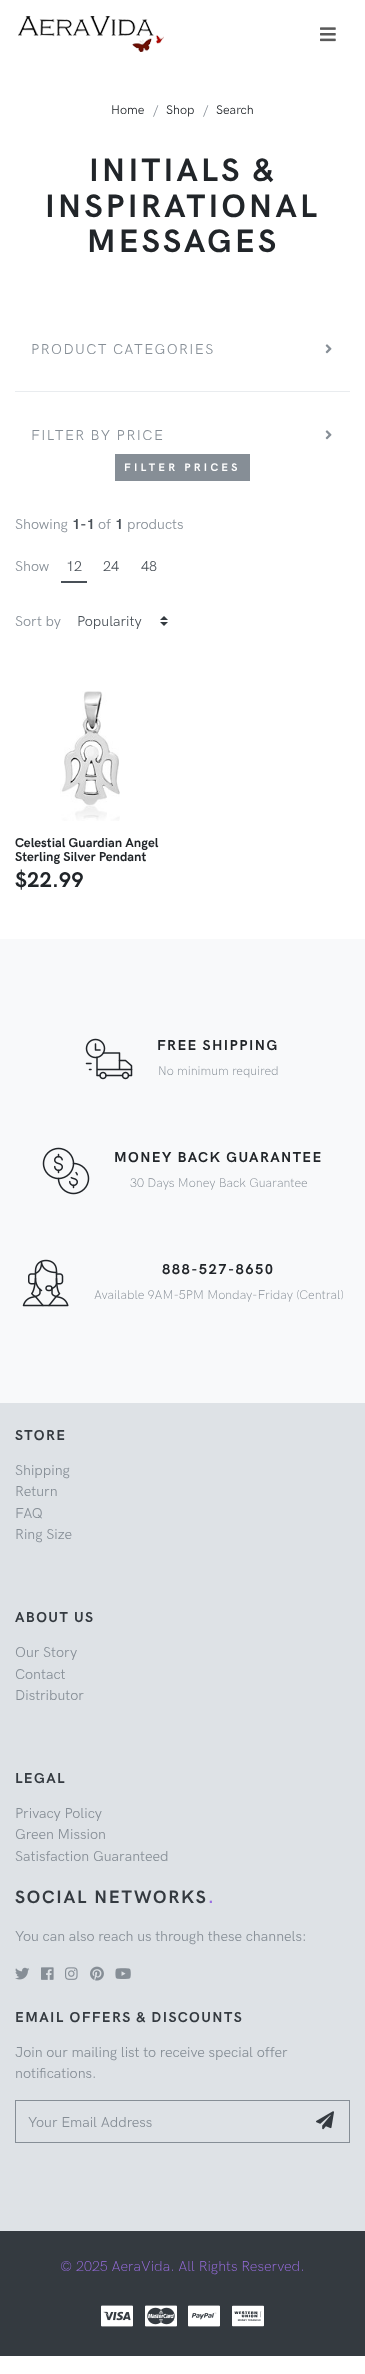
<svg xmlns="http://www.w3.org/2000/svg" width="365" height="2374">
<rect width="100%" height="100%" fill="#fff"/>
<image x="18" y="16" width="146" height="36" href="media/1.png"/>
<image x="320" y="27" width="16" height="15" href="media/2.png"/>
<text x="111" y="114" style="font-family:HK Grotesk;font-size:12.6px;fill:#212529">Home</text>
<text x="153" y="114" style="font-family:HK Grotesk;font-size:12.6px;fill:#868e96">/</text>
<text x="166" y="114" style="font-family:HK Grotesk;font-size:12.6px;fill:#212529">Shop</text>
<text x="203" y="114" style="font-family:HK Grotesk;font-size:12.6px;fill:#868e96">/</text>
<text x="216" y="114" style="font-family:HK Grotesk;font-size:12.6px;fill:#212529">Search</text>
<text x="89" y="181" style="font-family:HK Grotesk;font-size:32.5px;font-weight:bold;letter-spacing:3.25px;fill:#212529">INITIALS &amp;</text>
<text x="45" y="217" style="font-family:HK Grotesk;font-size:32.5px;font-weight:bold;letter-spacing:3.25px;fill:#212529">INSPIRATIONAL</text>
<text x="87" y="252" style="font-family:HK Grotesk;font-size:32.5px;font-weight:bold;letter-spacing:3.25px;fill:#212529">MESSAGES</text>
<rect x="15" y="391" width="335" height="1" fill="#e9ecef"/>
<text x="31" y="354" style="font-family:HK Grotesk;font-size:14.4px;letter-spacing:1.4px;fill:#868e96">PRODUCT CATEGORIES</text>
<image x="325" y="344" width="7" height="10" href="media/3.png"/>
<text x="31" y="440" style="font-family:HK Grotesk;font-size:14.4px;letter-spacing:1.4px;fill:#868e96">FILTER BY PRICE</text>
<image x="325" y="430" width="7" height="10" href="media/3.png"/>
<rect x="115" y="454" width="135" height="27" fill="#868e96"/>
<text x="124" y="471" style="font-family:HK Grotesk;font-size:11px;font-weight:bold;letter-spacing:3.25px;fill:#fff">FILTER PRICES</text>
<text x="15" y="529" style="font-family:HK Grotesk;font-size:14.4px;fill:#868e96">Showing</text>
<text x="72" y="529" style="font-family:HK Grotesk;font-size:14.4px;font-weight:bold;fill:#495057">1-1</text>
<text x="98" y="529" style="font-family:HK Grotesk;font-size:14.4px;fill:#868e96">of</text>
<text x="115" y="529" style="font-family:HK Grotesk;font-size:14.4px;font-weight:bold;fill:#495057">1</text>
<text x="127" y="529" style="font-family:HK Grotesk;font-size:14.4px;fill:#868e96">products</text>
<text x="15" y="571" style="font-family:HK Grotesk;font-size:14.4px;fill:#868e96">Show</text>
<rect x="61" y="581" width="26" height="2" fill="#495057"/>
<text x="66" y="571" style="font-family:HK Grotesk;font-size:14.4px;fill:#495057">12</text>
<text x="103" y="571" style="font-family:HK Grotesk;font-size:14.4px;fill:#495057">24</text>
<text x="141" y="571" style="font-family:HK Grotesk;font-size:14.4px;fill:#495057">48</text>
<text x="15" y="626" style="font-family:HK Grotesk;font-size:14.4px;fill:#868e96">Sort by</text>
<image x="160" y="616" width="8" height="10" href="media/4.png"/>
<text x="77" y="626" style="font-family:HK Grotesk;font-size:14.4px;fill:#495057">Popularity</text>
<image x="60" y="691" width="60" height="130" href="media/5.png"/>
<text x="15" y="847" style="font-family:HK Grotesk;font-size:13px;font-weight:bold;fill:#212529">Celestial Guardian Angel</text>
<text x="15" y="861" style="font-family:HK Grotesk;font-size:13px;font-weight:bold;fill:#212529">Sterling Silver Pendant</text>
<text x="15" y="887" style="font-family:HK Grotesk;font-size:21.5px;font-weight:bold;fill:#212529">$22.99</text>
<rect y="939" width="365" height="464" fill="#f8f9fa"/>
<image x="85" y="1038" width="48" height="42" href="media/6.png"/>
<text x="157" y="1050" style="font-family:HK Grotesk;font-size:14.4px;font-weight:bold;letter-spacing:1.4px;fill:#212529">FREE SHIPPING</text>
<text x="158" y="1075" style="font-family:HK Grotesk;font-size:12.6px;font-weight:300;fill:#868e96">No minimum required</text>
<image x="42" y="1147" width="48" height="48" href="media/7.png"/>
<text x="114" y="1162" style="font-family:HK Grotesk;font-size:14.4px;font-weight:bold;letter-spacing:1.4px;fill:#212529">MONEY BACK GUARANTEE</text>
<text x="130" y="1187" style="font-family:HK Grotesk;font-size:12.6px;font-weight:300;fill:#868e96">30 Days Money Back Guarantee</text>
<image x="22" y="1259" width="47" height="48" href="media/8.png"/>
<text x="162" y="1274" style="font-family:HK Grotesk;font-size:14.4px;font-weight:bold;letter-spacing:1.4px;fill:#212529">888-527-8650</text>
<text x="94" y="1299" style="font-family:HK Grotesk;font-size:12.6px;font-weight:300;fill:#868e96">Available 9AM-5PM Monday-Friday (Central)</text>
<rect y="1403" width="365" height="828" fill="#dee2e6"/>
<text x="15" y="1440" style="font-family:HK Grotesk;font-size:14.4px;font-weight:bold;letter-spacing:1.4px;fill:#343a40">STORE</text>
<text x="15" y="1475" style="font-family:HK Grotesk;font-size:14.4px;fill:#868e96">Shipping</text>
<text x="15" y="1496" style="font-family:HK Grotesk;font-size:14.4px;fill:#868e96">Return</text>
<text x="15" y="1518" style="font-family:HK Grotesk;font-size:14.4px;fill:#868e96">FAQ</text>
<text x="15" y="1539" style="font-family:HK Grotesk;font-size:14.4px;fill:#868e96">Ring Size</text>
<text x="15" y="1622" style="font-family:HK Grotesk;font-size:14.4px;font-weight:bold;letter-spacing:1.4px;fill:#343a40">ABOUT US</text>
<text x="15" y="1657" style="font-family:HK Grotesk;font-size:14.4px;fill:#868e96">Our Story</text>
<text x="15" y="1679" style="font-family:HK Grotesk;font-size:14.4px;fill:#868e96">Contact</text>
<text x="15" y="1700" style="font-family:HK Grotesk;font-size:14.4px;fill:#868e96">Distributor</text>
<text x="15" y="1783" style="font-family:HK Grotesk;font-size:14.4px;font-weight:bold;letter-spacing:1.4px;fill:#343a40">LEGAL</text>
<text x="15" y="1818" style="font-family:HK Grotesk;font-size:14.4px;fill:#868e96">Privacy Policy</text>
<text x="15" y="1839" style="font-family:HK Grotesk;font-size:14.4px;fill:#868e96">Green Mission</text>
<text x="15" y="1861" style="font-family:HK Grotesk;font-size:14.4px;fill:#868e96">Satisfaction Guaranteed</text>
<text x="15" y="1903" style="font-family:HK Grotesk;font-size:18px;font-weight:bold;letter-spacing:1.75px;fill:#343a40">SOCIAL NETWORKS</text>
<text x="208" y="1903" style="font-family:HK Grotesk;font-size:18px;font-weight:bold;letter-spacing:1.75px;fill:#9a6ee2">.</text>
<text x="15" y="1941" style="font-family:HK Grotesk;font-size:14.4px;fill:#868e96">You can also reach us through these channels:</text>
<image x="15" y="1967" width="15" height="13" href="media/9.png"/>
<image x="41" y="1967" width="13" height="13" href="media/10.png"/>
<image x="65" y="1967" width="13" height="13" href="media/11.png"/>
<image x="90" y="1966" width="14" height="15" href="media/12.png"/>
<image x="115" y="1968" width="16" height="11" href="media/13.png"/>
<text x="15" y="2022" style="font-family:HK Grotesk;font-size:14.4px;font-weight:bold;letter-spacing:1.4px;fill:#343a40">EMAIL OFFERS &amp; DISCOUNTS</text>
<text x="15" y="2057" style="font-family:HK Grotesk;font-size:14.4px;fill:#868e96">Join our mailing list to receive special offer</text>
<text x="15" y="2078" style="font-family:HK Grotesk;font-size:14.4px;fill:#868e96">notifications.</text>
<rect x="15" y="2100" width="335" height="1" fill="#868e96"/>
<rect x="15" y="2142" width="290" height="1" fill="#868e96"/>
<rect x="15" y="2100" width="1" height="43" fill="#868e96"/>
<text x="28" y="2127" style="font-family:HK Grotesk;font-size:14.4px;fill:#868e96">Your Email Address</text>
<rect x="349" y="2100" width="1" height="43" fill="#868e96"/>
<rect x="304" y="2142" width="46" height="1" fill="#868e96"/>
<image x="316" y="2111" width="18" height="19" href="media/14.png"/>
<rect y="2231" width="365" height="125" fill="#343a40"/>
<text x="60" y="2271" style="font-family:HK Grotesk;font-size:14.4px;font-weight:300;fill:#9a6ee2">© 2025 AeraVida. All Rights Reserved.</text>
<image x="101" y="2305" width="32" height="22" href="media/15.png"/>
<image x="145" y="2305" width="32" height="22" href="media/16.png"/>
<image x="188" y="2305" width="32" height="22" href="media/17.png"/>
<image x="232" y="2305" width="32" height="22" href="media/18.png"/>
</svg>
